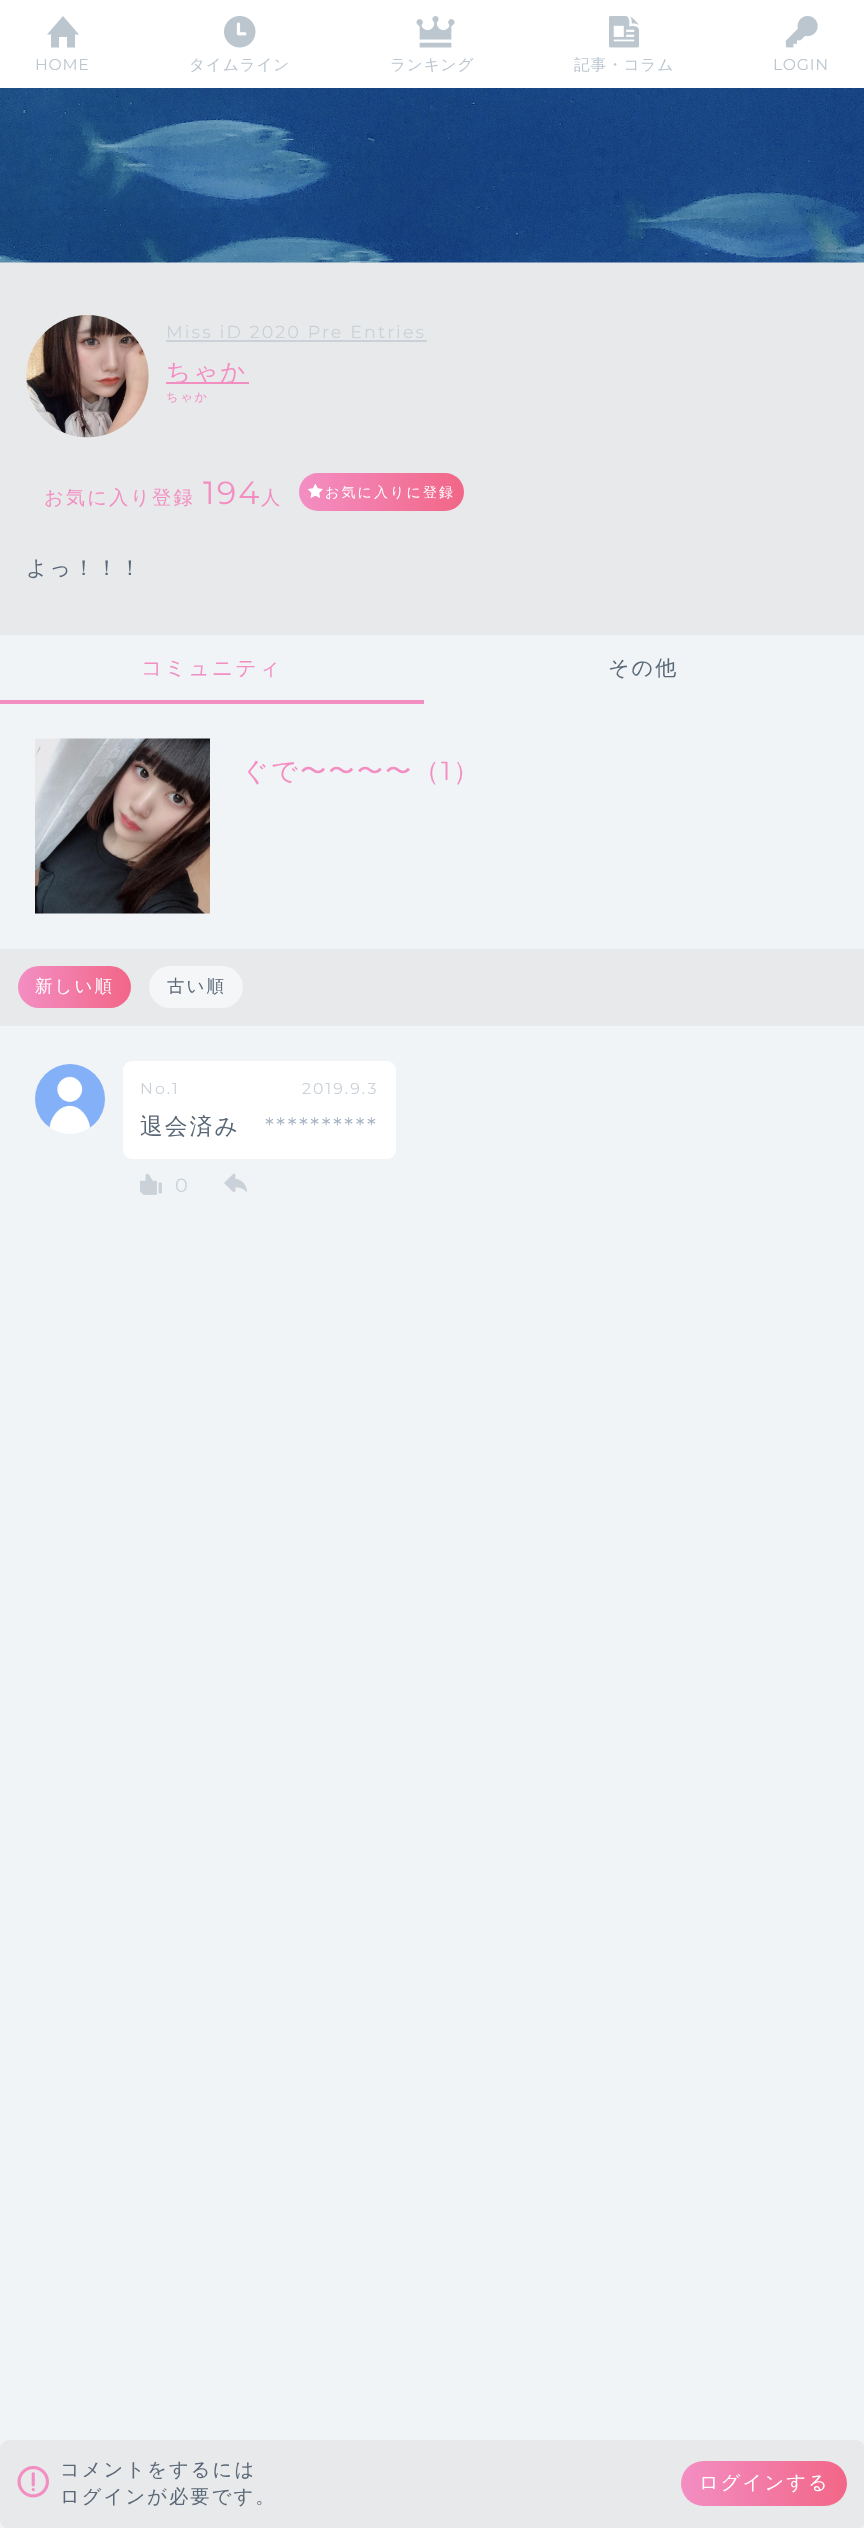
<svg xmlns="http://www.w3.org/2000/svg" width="864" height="2528">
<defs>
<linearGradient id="g1" gradientUnits="userSpaceOnUse" x1="299" y1="492" x2="464" y2="492"><stop offset="0" stop-color="#f38ec3"/><stop offset="1" stop-color="#f26687"/></linearGradient>
<linearGradient id="g2" gradientUnits="userSpaceOnUse" x1="18" y1="987" x2="131" y2="987"><stop offset="0" stop-color="#f38ec3"/><stop offset="1" stop-color="#f26687"/></linearGradient>
<linearGradient id="g3" gradientUnits="userSpaceOnUse" x1="681" y1="2483" x2="847" y2="2483"><stop offset="0" stop-color="#f38ec3"/><stop offset="1" stop-color="#f26687"/></linearGradient>
</defs>
<rect width="100%" height="100%" fill="#f1f4f6"/>
<rect width="864" height="88" fill="#fff"/>
<path d="M79 34.5h-4v13h-8v-10.5h-8v10.5h-8v-13h-4l16-18.5z" fill="#bcc6cf"/>
<text x="35" y="70" style="font-family:Montserrat;font-size:15.75px;letter-spacing:0.75px;fill:#bcc6cf">HOME</text>
<image x="224" y="16" width="32" height="32" href="media/1.png"/>
<text x="189" y="70" style="font-family:WenQuanYi Zen Hei;font-size:15.75px;font-weight:500;letter-spacing:0.75px;fill:#bcc6cf">タイムライン</text>
<image x="416" y="16" width="39" height="32" href="media/2.png"/>
<text x="390" y="70" style="font-family:WenQuanYi Zen Hei;font-size:15.75px;font-weight:500;letter-spacing:0.75px;fill:#bcc6cf">ランキング</text>
<image x="609" y="16" width="30" height="32" href="media/3.png"/>
<text x="574" y="70" style="font-family:WenQuanYi Zen Hei;font-size:15.75px;font-weight:500;letter-spacing:0.75px;fill:#bcc6cf">記事・コラム</text>
<image x="785" y="16" width="33" height="32" href="media/4.png"/>
<text x="773" y="70" style="font-family:Montserrat;font-size:15.75px;letter-spacing:0.75px;fill:#bcc6cf">LOGIN</text>
<rect y="262" width="864" height="373" fill="#e8e9ea"/>
<image x="0" y="88" width="864" height="175" href="media/5.png"/>
<image x="26" y="315" width="123" height="123" href="media/6.png"/>
<text x="166" y="338" style="font-family:Montserrat;font-size:17.5px;letter-spacing:2.1px;fill:#cbd1d8">Miss iD 2020 Pre Entries</text>
<rect x="166" y="340" width="261" height="2" fill="#cbd1d8"/>
<rect x="166" y="382" width="83" height="2" fill="#f38ec3"/>
<text x="166" y="380" style="font-family:WenQuanYi Zen Hei;font-size:24.5px;font-weight:500;letter-spacing:2.1px;fill:#f38ec3">ちゃか</text>
<text x="166" y="401" style="font-family:WenQuanYi Zen Hei;font-size:12px;font-weight:500;letter-spacing:2.1px;fill:#f38ec3">ちゃか</text>
<text x="44" y="504" style="font-family:WenQuanYi Zen Hei;font-size:19.25px;font-weight:500;letter-spacing:2.1px;fill:#f38ec3">お気に入り登録</text>
<text x="203" y="504" style="font-family:Montserrat;font-size:32px;letter-spacing:2.1px;fill:#f38ec3">194</text>
<text x="261" y="504" style="font-family:WenQuanYi Zen Hei;font-size:19.25px;font-weight:500;letter-spacing:2.1px;fill:#f38ec3">人</text>
<rect x="299" y="473" width="165" height="38" rx="19" fill="url(#g1)"/>
<image x="308" y="483" width="15" height="15" href="media/7.png"/>
<text x="325" y="497" style="font-family:WenQuanYi Zen Hei;font-size:14px;font-weight:500;letter-spacing:2.1px;fill:#fff">お気に入りに登録</text>
<text x="26" y="575" style="font-family:WenQuanYi Zen Hei;font-size:21px;font-weight:500;letter-spacing:2.1px;fill:#596776">よっ！！！</text>
<rect y="700" width="424" height="4" fill="#f38ec3"/>
<text x="141" y="675" style="font-family:WenQuanYi Zen Hei;font-size:21px;font-weight:500;letter-spacing:2.1px;fill:#f38ec3">コミュニティ</text>
<text x="608" y="675" style="font-family:WenQuanYi Zen Hei;font-size:21px;font-weight:500;letter-spacing:2.1px;fill:#596776">その他</text>
<image x="35" y="738" width="175" height="176" href="media/8.png"/>
<text x="242" y="780" style="font-family:WenQuanYi Zen Hei;font-size:26.25px;font-weight:500;letter-spacing:2.1px;fill:#f38ec3">ぐで〜〜〜〜（</text>
<text x="441" y="780" style="font-family:Montserrat;font-size:26.25px;letter-spacing:2.1px;fill:#f38ec3">1</text>
<text x="453" y="780" style="font-family:WenQuanYi Zen Hei;font-size:26.25px;font-weight:500;letter-spacing:2.1px;fill:#f38ec3">）</text>
<rect y="949" width="864" height="77" fill="#e8e9ea"/>
<rect x="18" y="966" width="113" height="42" rx="21" fill="url(#g2)"/>
<text x="35" y="992" style="font-family:WenQuanYi Zen Hei;font-size:17.5px;font-weight:500;letter-spacing:2.1px;fill:#fff">新しい順</text>
<rect x="149" y="966" width="94" height="42" rx="21" fill="#f4f6f8"/>
<text x="167" y="992" style="font-family:WenQuanYi Zen Hei;font-size:17.5px;font-weight:500;letter-spacing:2.1px;fill:#596776">古い順</text>
<image x="35" y="1064" width="70" height="70" href="media/9.png"/>
<rect x="123" y="1061" width="273" height="98" rx="9" fill="#fff"/>
<text x="140" y="1094" style="font-family:Montserrat;font-size:15.75px;letter-spacing:2.1px;fill:#cbd1d8">No.1</text>
<text x="302" y="1094" style="font-family:Montserrat;font-size:15.75px;letter-spacing:2.1px;fill:#cbd1d8">2019.9.3</text>
<text x="140" y="1134" style="font-family:WenQuanYi Zen Hei;font-size:22.75px;font-weight:500;letter-spacing:2.1px;fill:#596776">退会済み</text>
<text x="265" y="1134" style="font-family:Montserrat;font-size:22.75px;letter-spacing:2.1px;fill:#a7b4c3">**********</text>
<image x="140" y="1173" width="22" height="22" href="media/10.png"/>
<text x="175" y="1192" style="font-family:Montserrat;font-size:19.25px;letter-spacing:2.1px;fill:#cbd1d8">0</text>
<image x="224" y="1173" width="23" height="20" href="media/11.png"/>
<rect y="2440" width="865" height="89" rx="9" fill="#e8e9ea"/>
<image x="17" y="2466" width="32" height="32" href="media/12.png"/>
<text x="60" y="2476" style="font-family:WenQuanYi Zen Hei;font-size:19.25px;font-weight:500;letter-spacing:2.1px;fill:#596776">コメントをするには</text>
<text x="60" y="2503" style="font-family:WenQuanYi Zen Hei;font-size:19.25px;font-weight:500;letter-spacing:2.1px;fill:#596776">ログインが必要です。</text>
<rect x="681" y="2461" width="166" height="45" rx="22.5" fill="url(#g3)"/>
<text x="699" y="2489" style="font-family:WenQuanYi Zen Hei;font-size:19.25px;font-weight:500;letter-spacing:2.1px;fill:#fff">ログインする</text>
</svg>
